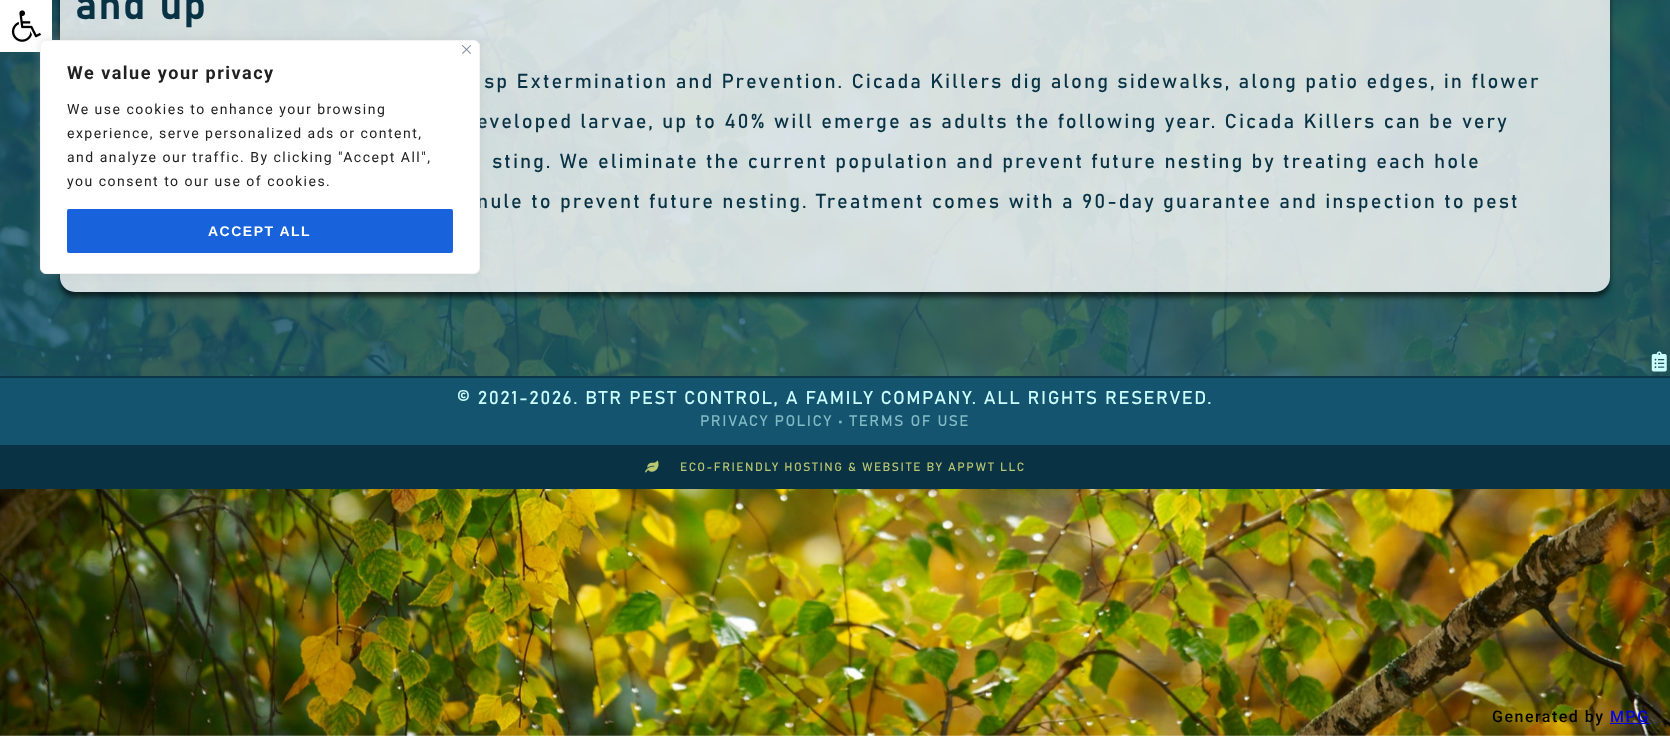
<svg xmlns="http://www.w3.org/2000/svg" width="1670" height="736">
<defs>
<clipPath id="clip1"><path d="M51 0h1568v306h-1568zm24-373h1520c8.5 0 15 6.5 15 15v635c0 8.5-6.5 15-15 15h-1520c-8.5 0-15-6.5-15-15v-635c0-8.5 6.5-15 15-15z" clip-rule="evenodd"/></clipPath>
</defs>
<rect width="100%" height="100%" fill="#fff"/>
<image x="0" y="0" width="1670" height="736" href="media/1.png"/>
<rect width="1670" height="376" fill="#14546ecc"/>
<g clip-path="url(#clip1)">
<rect x="60" y="-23" width="1550" height="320" rx="15" fill="#00000099" filter="blur(2.5px)"/>
</g>
<rect width="52" height="52" fill="#fff"/>
<image x="11" y="10" width="30" height="32" href="media/2.png"/>
<rect x="60" y="-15" width="1550" height="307" rx="15" fill="#ffffffcc"/>
<text x="75" y="19" style="font-family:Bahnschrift;font-size:40px;font-weight:bold;letter-spacing:2px;fill:#093244">and up</text>
<text x="484" y="88" style="font-family:Bahnschrift;font-size:20px;letter-spacing:2px;fill:#093244">sp Extermination and Prevention. Cicada Killers dig along sidewalks, along patio edges, in flower</text>
<text x="477" y="128" style="font-family:Bahnschrift;font-size:20px;letter-spacing:2px;fill:#093244">eveloped larvae, up to 40% will emerge as adults the following year. Cicada Killers can be very</text>
<text x="492" y="168" style="font-family:Bahnschrift;font-size:20px;letter-spacing:2px;fill:#093244">sting. We eliminate the current population and prevent future nesting by treating each hole</text>
<text x="477" y="208" style="font-family:Bahnschrift;font-size:20px;letter-spacing:2px;fill:#093244">nule to prevent future nesting. Treatment comes with a 90-day guarantee and inspection to pest</text>
<image x="1651" y="351" width="16" height="21" href="media/3.png"/>
<rect x="40" y="39" width="440" height="234" rx="6" fill="#acabab4d" filter="blur(5px)"/>
<rect x="40.5" y="40.5" width="439" height="233" rx="5.5" fill="#fff" stroke="#f4f4f4"/>
<image x="462" y="45" width="9" height="9" href="media/4.png"/>
<text x="67" y="79" style="font-family:Roboto;font-size:18px;font-weight:bold;letter-spacing:1.5px;fill:#212121">We value your privacy</text>
<text x="67" y="114" style="font-family:Roboto;font-size:14px;letter-spacing:1.5px;fill:#212121">We use cookies to enhance your browsing</text>
<text x="67" y="138" style="font-family:Roboto;font-size:14px;letter-spacing:1.5px;fill:#212121">experience, serve personalized ads or content,</text>
<text x="67" y="162" style="font-family:Roboto;font-size:14px;letter-spacing:1.5px;fill:#212121">and analyze our traffic. By clicking "Accept All",</text>
<text x="67" y="186" style="font-family:Roboto;font-size:14px;letter-spacing:1.5px;fill:#212121">you consent to our use of cookies.</text>
<rect x="68" y="210" width="384" height="42" rx="1" fill="#1863dc" stroke="#1863dc" stroke-width="2"/>
<text x="208" y="236" style="font-family:Liberation Sans;font-size:14px;font-weight:bold;letter-spacing:1.5px;fill:#fff">ACCEPT ALL</text>
<rect y="445" width="1670" height="44" fill="#093244"/>
<rect y="378" width="1670" height="67" fill="#14546e"/>
<rect y="376" width="1670" height="2" fill="#0d3849"/>
<text x="457" y="404" style="font-family:Bahnschrift;font-size:18.35px;letter-spacing:1.5px;fill:#cbffff">© 2021-2026. BTR PEST CONTROL, A FAMILY COMPANY. ALL RIGHTS RESERVED.</text>
<text x="700" y="426" style="font-family:Bahnschrift;font-size:15.25px;letter-spacing:1.5px;fill:#82bbc5">PRIVACY POLICY • TERMS OF USE</text>
<image x="645" y="460" width="14" height="13" href="media/5.png"/>
<text x="680" y="471" style="font-family:Bahnschrift;font-size:12px;letter-spacing:1.5px;fill:#bac771">ECO-FRIENDLY HOSTING &amp; WEBSITE BY APPWT LLC</text>
<text x="1492" y="722" style="font-family:Roboto;font-size:16px;font-weight:500;letter-spacing:1.5px;fill:#000">Generated by</text>
<text x="1610" y="722" style="font-family:Roboto;font-size:16px;font-weight:500;letter-spacing:1.5px;fill:#00e">MPG</text>
<rect x="1610" y="723" width="40" height="1" fill="#00e"/>
</svg>
